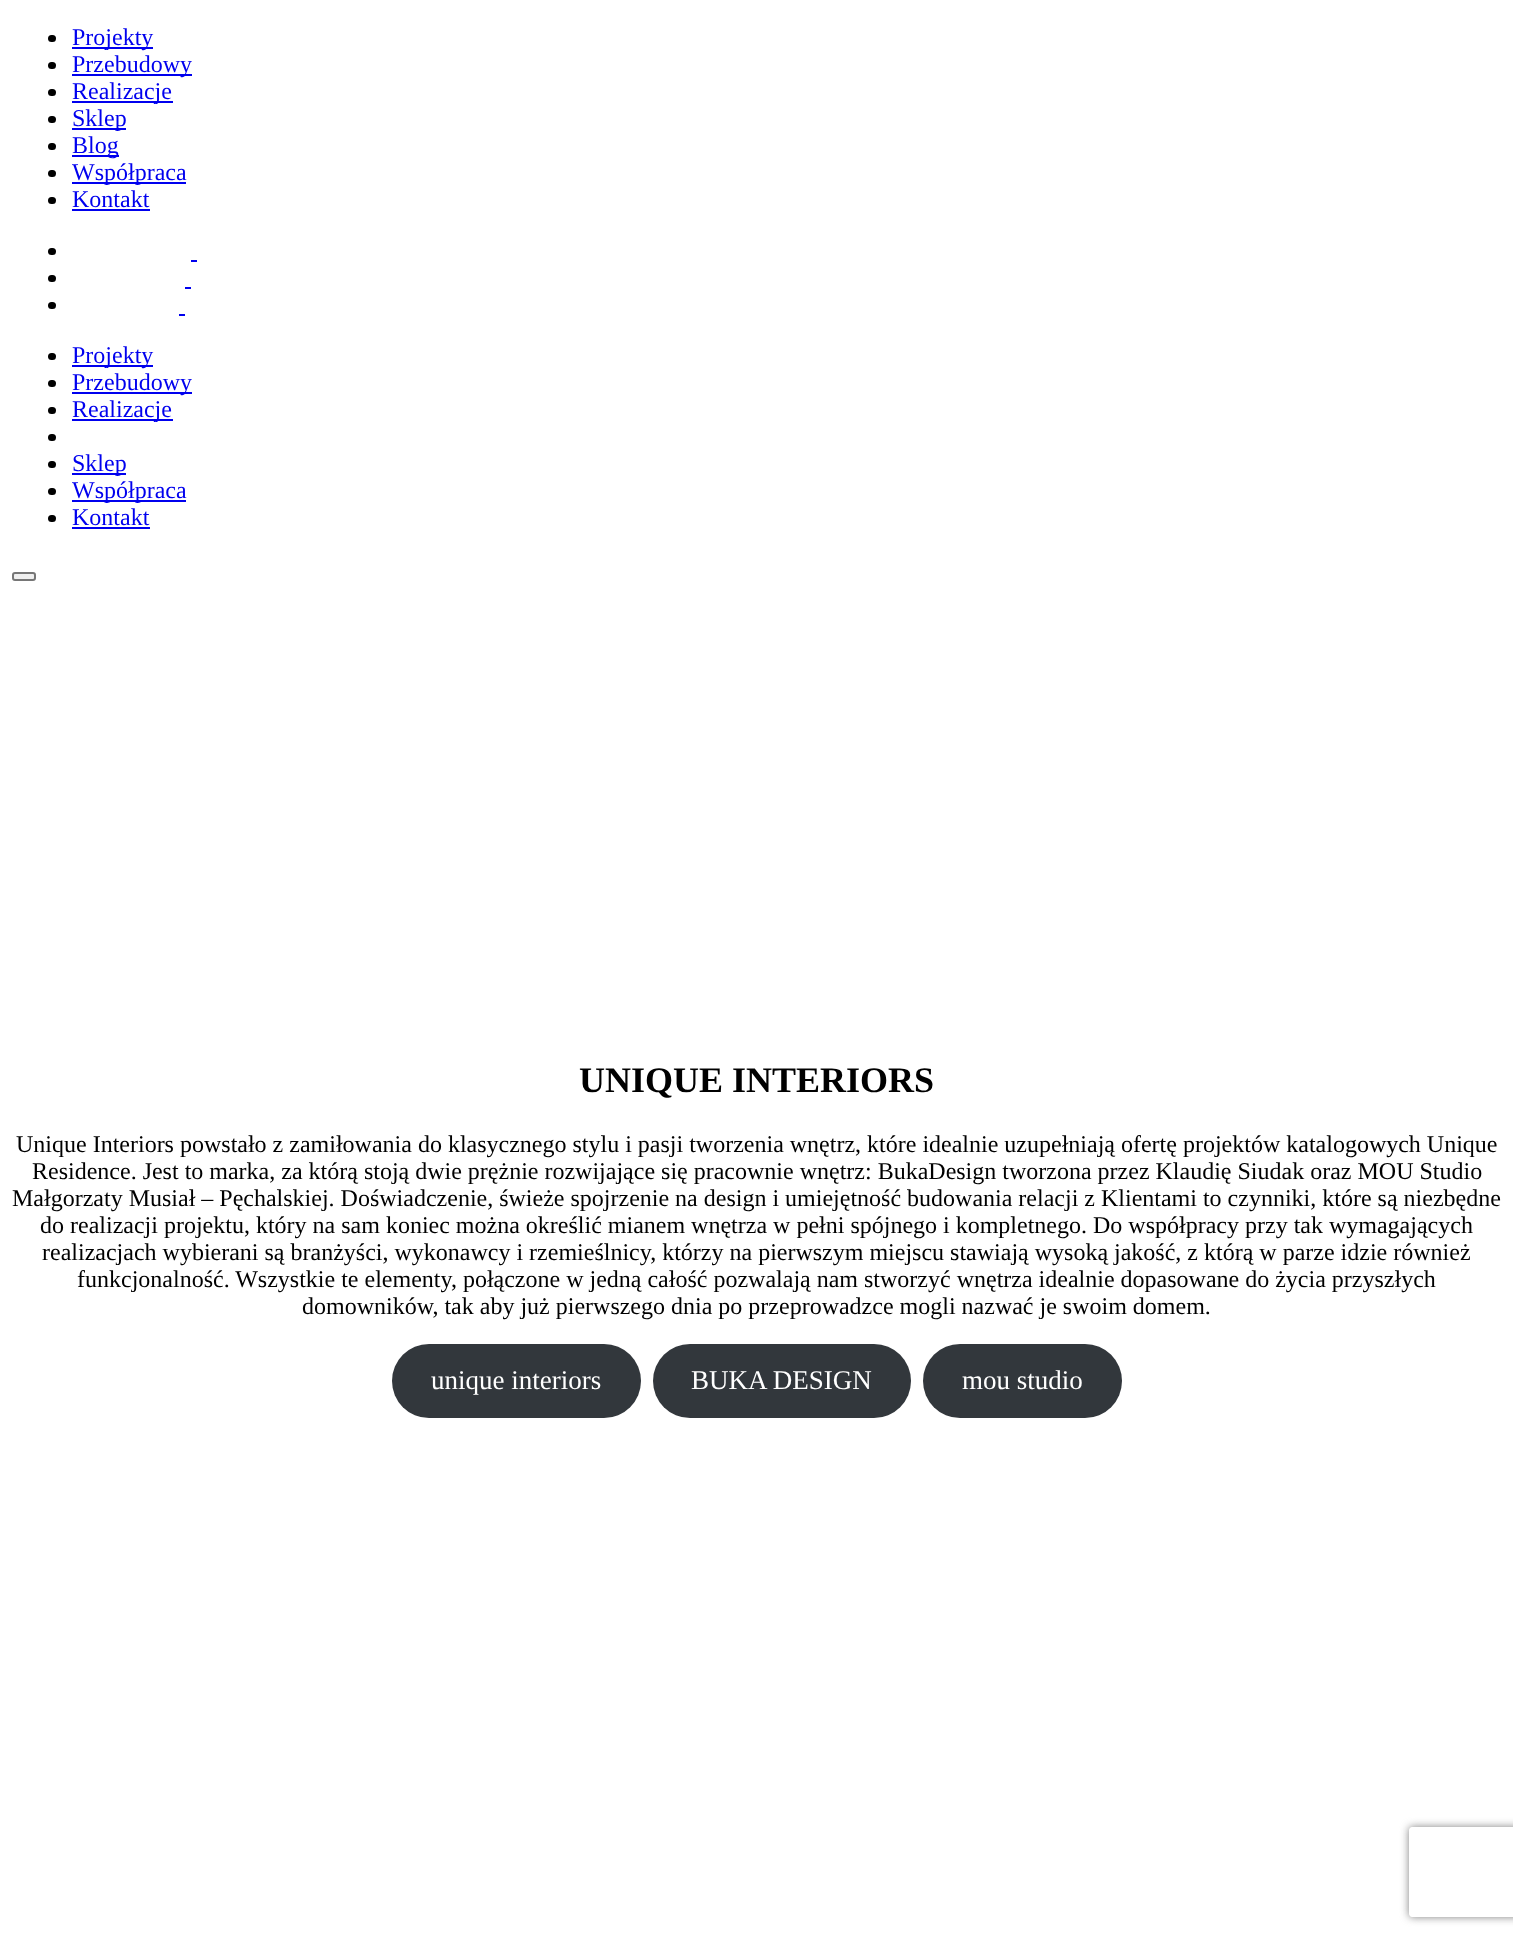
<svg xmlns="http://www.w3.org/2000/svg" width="1513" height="1938">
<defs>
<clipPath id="clip1"><path d="M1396 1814h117v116h-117zm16 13h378c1.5 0 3 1.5 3 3v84c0 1.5-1.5 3-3 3h-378c-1.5 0-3-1.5-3-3v-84c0-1.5 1.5-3 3-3z" clip-rule="evenodd"/></clipPath>
</defs>
<rect width="100%" height="100%" fill="#fff"/>
<rect x="48" y="35" width="8" height="7" rx="3.5" fill="#000"/>
<rect x="72" y="47" width="81" height="2" fill="#00e"/>
<text x="72" y="45" style="font-family:Liberation Serif;font-size:24px;fill:#00e">Projekty</text>
<rect x="48" y="62" width="8" height="7" rx="3.5" fill="#000"/>
<rect x="72" y="74" width="120" height="2" fill="#00e"/>
<text x="72" y="72" style="font-family:Liberation Serif;font-size:24px;fill:#00e">Przebudowy</text>
<rect x="48" y="89" width="8" height="7" rx="3.5" fill="#000"/>
<rect x="72" y="101" width="101" height="2" fill="#00e"/>
<text x="72" y="99" style="font-family:Liberation Serif;font-size:24px;fill:#00e">Realizacje</text>
<rect x="48" y="116" width="8" height="7" rx="3.5" fill="#000"/>
<rect x="72" y="128" width="54" height="2" fill="#00e"/>
<text x="72" y="126" style="font-family:Liberation Serif;font-size:24px;fill:#00e">Sklep</text>
<rect x="48" y="143" width="8" height="7" rx="3.5" fill="#000"/>
<rect x="72" y="155" width="47" height="2" fill="#00e"/>
<text x="72" y="153" style="font-family:Liberation Serif;font-size:24px;fill:#00e">Blog</text>
<rect x="48" y="170" width="8" height="7" rx="3.5" fill="#000"/>
<rect x="72" y="182" width="114" height="2" fill="#00e"/>
<text x="72" y="180" style="font-family:Liberation Serif;font-size:24px;fill:#00e">Współpraca</text>
<rect x="48" y="197" width="8" height="7" rx="3.5" fill="#000"/>
<text x="72" y="207" style="font-family:Liberation Serif;font-size:24px;fill:#00e">Kontakt</text>
<rect x="72" y="209" width="78" height="2" fill="#00e"/>
<rect x="48" y="248" width="8" height="7" rx="3.5" fill="#000"/>
<rect x="191" y="260" width="6" height="2" fill="#00e"/>
<rect x="48" y="275" width="8" height="7" rx="3.5" fill="#000"/>
<rect x="185" y="287" width="6" height="2" fill="#00e"/>
<rect x="48" y="302" width="8" height="7" rx="3.5" fill="#000"/>
<rect x="179" y="314" width="6" height="2" fill="#00e"/>
<rect x="48" y="353" width="8" height="7" rx="3.5" fill="#000"/>
<rect x="72" y="365" width="81" height="2" fill="#00e"/>
<text x="72" y="363" style="font-family:Liberation Serif;font-size:24px;fill:#00e">Projekty</text>
<rect x="48" y="380" width="8" height="7" rx="3.5" fill="#000"/>
<rect x="72" y="392" width="120" height="2" fill="#00e"/>
<text x="72" y="390" style="font-family:Liberation Serif;font-size:24px;fill:#00e">Przebudowy</text>
<rect x="48" y="407" width="8" height="7" rx="3.5" fill="#000"/>
<rect x="72" y="419" width="101" height="2" fill="#00e"/>
<text x="72" y="417" style="font-family:Liberation Serif;font-size:24px;fill:#00e">Realizacje</text>
<rect x="48" y="434" width="8" height="7" rx="3.5" fill="#000"/>
<rect x="48" y="461" width="8" height="7" rx="3.5" fill="#000"/>
<rect x="72" y="473" width="54" height="2" fill="#00e"/>
<text x="72" y="471" style="font-family:Liberation Serif;font-size:24px;fill:#00e">Sklep</text>
<rect x="48" y="488" width="8" height="7" rx="3.5" fill="#000"/>
<rect x="72" y="500" width="114" height="2" fill="#00e"/>
<text x="72" y="498" style="font-family:Liberation Serif;font-size:24px;fill:#00e">Współpraca</text>
<rect x="48" y="515" width="8" height="7" rx="3.5" fill="#000"/>
<text x="72" y="525" style="font-family:Liberation Serif;font-size:24px;fill:#00e">Kontakt</text>
<rect x="72" y="527" width="78" height="2" fill="#00e"/>
<rect x="13" y="573" width="22" height="7" rx="2" fill="#efefef" stroke="#767676" stroke-width="2"/>
<text x="579" y="1092" style="font-family:Liberation Serif;font-size:36px;font-weight:bold;fill:#000">UNIQUE INTERIORS</text>
<text x="16" y="1152" style="font-family:Liberation Serif;font-size:24px;fill:#000">Unique Interiors powstało z zamiłowania do klasycznego stylu i pasji tworzenia wnętrz, które idealnie uzupełniają ofertę projektów katalogowych Unique</text>
<text x="32" y="1179" style="font-family:Liberation Serif;font-size:24px;fill:#000">Residence. Jest to marka, za którą stoją dwie prężnie rozwijające się pracownie wnętrz: BukaDesign tworzona przez Klaudię Siudak oraz MOU Studio</text>
<text x="12" y="1206" style="font-family:Liberation Serif;font-size:24px;fill:#000">Małgorzaty Musiał – Pęchalskiej. Doświadczenie, świeże spojrzenie na design i umiejętność budowania relacji z Klientami to czynniki, które są niezbędne</text>
<text x="40" y="1233" style="font-family:Liberation Serif;font-size:24px;fill:#000">do realizacji projektu, który na sam koniec można określić mianem wnętrza w pełni spójnego i kompletnego. Do współpracy przy tak wymagających</text>
<text x="42" y="1260" style="font-family:Liberation Serif;font-size:24px;fill:#000">realizacjach wybierani są branżyści, wykonawcy i rzemieślnicy, którzy na pierwszym miejscu stawiają wysoką jakość, z którą w parze idzie również</text>
<text x="77" y="1287" style="font-family:Liberation Serif;font-size:24px;fill:#000">funkcjonalność. Wszystkie te elementy, połączone w jedną całość pozwalają nam stworzyć wnętrza idealnie dopasowane do życia przyszłych</text>
<text x="302" y="1314" style="font-family:Liberation Serif;font-size:24px;fill:#000">domowników, tak aby już pierwszego dnia po przeprowadzce mogli nazwać je swoim domem.</text>
<rect x="392" y="1344" width="249" height="74" rx="37" fill="#32373c"/>
<text x="431" y="1389" style="font-family:Liberation Serif;font-size:27px;fill:#fff">unique interiors</text>
<rect x="653" y="1344" width="258" height="74" rx="37" fill="#32373c"/>
<text x="691" y="1389" style="font-family:Liberation Serif;font-size:27px;fill:#fff">BUKA DESIGN</text>
<rect x="923" y="1344" width="199" height="74" rx="37" fill="#32373c"/>
<text x="962" y="1389" style="font-family:Liberation Serif;font-size:27px;fill:#fff">mou studio</text>
<g clip-path="url(#clip1)">
<rect x="1409" y="1827" width="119" height="90" rx="3" fill="#808080" filter="blur(4px)"/>
</g>
</svg>
